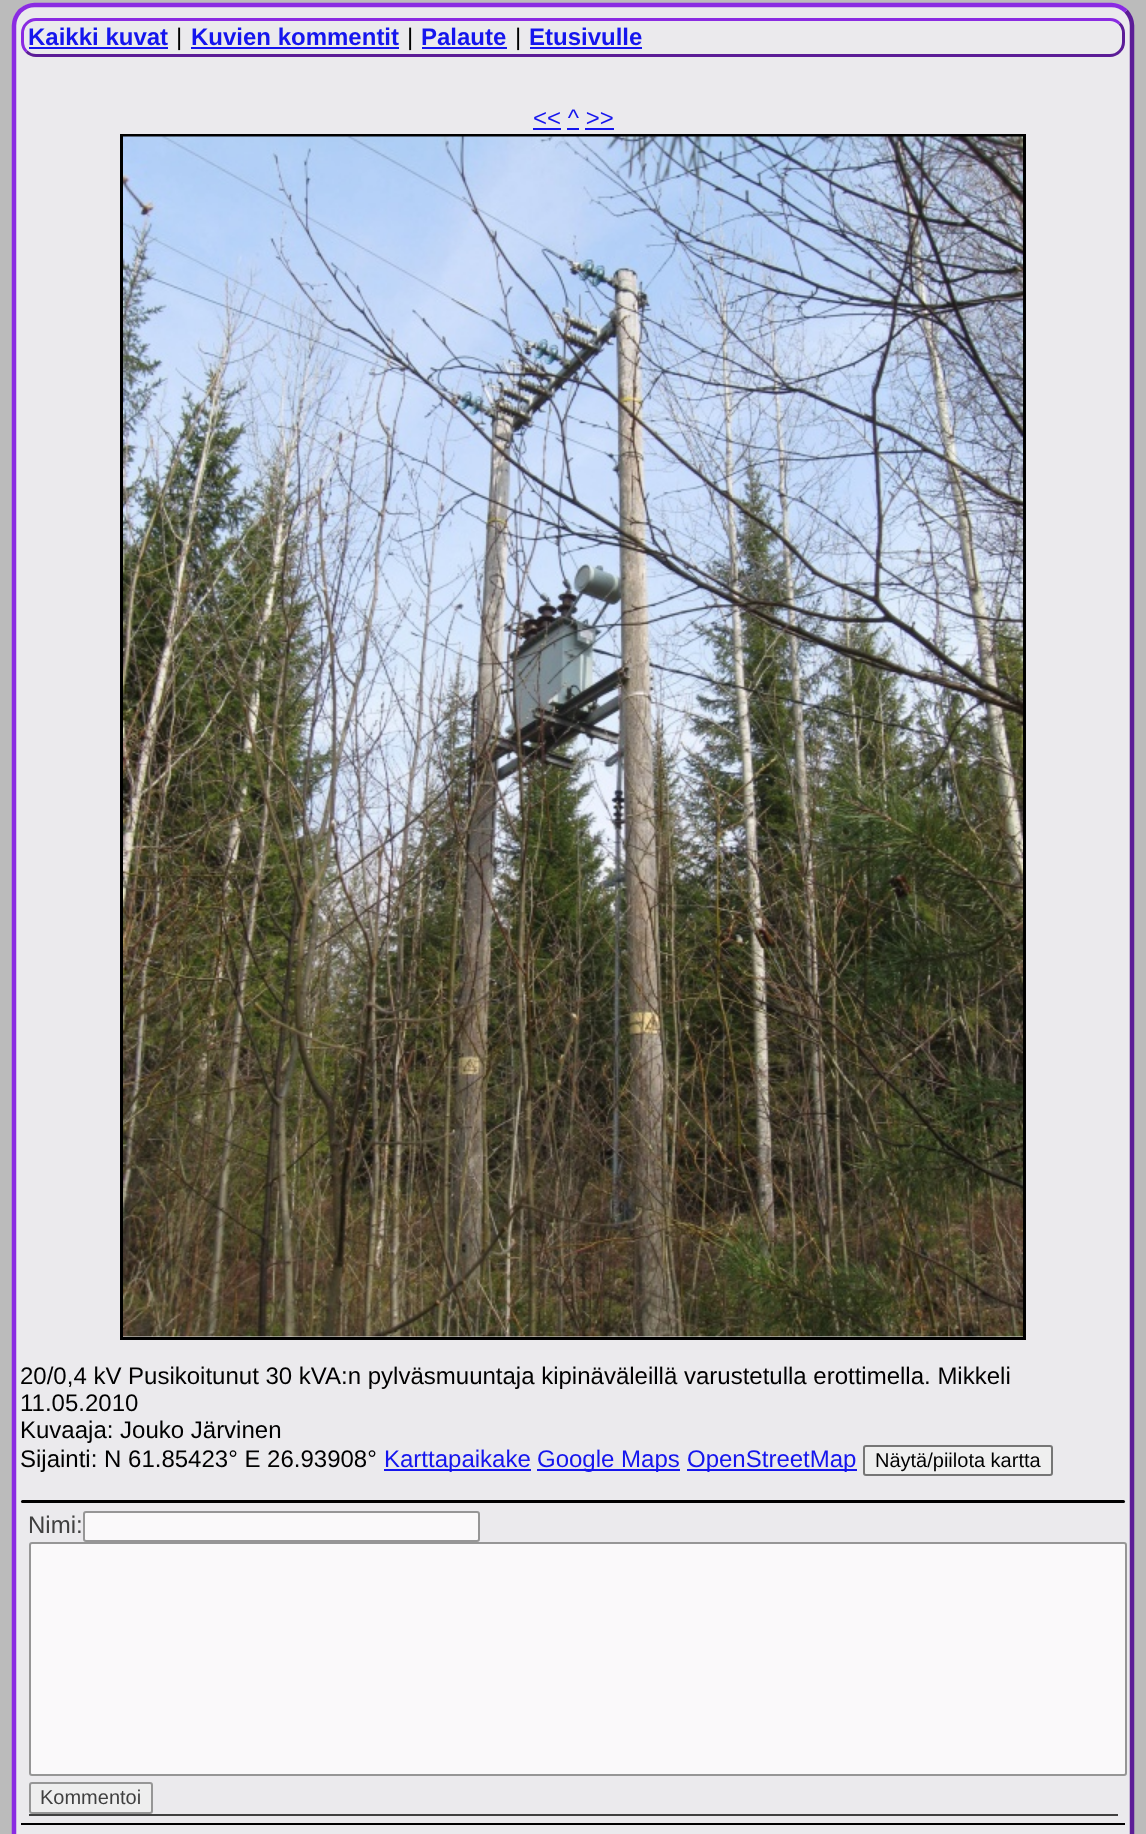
<svg xmlns="http://www.w3.org/2000/svg" width="1146" height="1834">
<rect width="100%" height="100%" fill="#bbb"/>
<rect x="12" y="3" width="1122" height="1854" rx="23" fill="#ebeaed"/>
<path d="M1126 11c3.5 4 6 9 6 14.5v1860c0 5.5-2.5 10.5-6 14.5c-4 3.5-9 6-14.5 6h-1077c-5.5 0-10.5-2.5-14.5-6" fill="none" stroke="#5c1d97" stroke-width="4.5"/>
<path d="M20 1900c-3.5-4-5.5-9-6-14.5v-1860c0-5.5 2.5-10.5 6-14.5c4-3.5 9-6 14.5-6h1077c5.5 0 10.5 2.5 14.5 6" fill="none" stroke="#8a2be2" stroke-width="4.5"/>
<path d="M1119.5 23.5c2.5 2.5 4 6 4 9.5v9c0 3.5-1.5 7-4 9.5c-2.5 2.5-6 4-9.5 4h-1074c-3.5 0-7-1.5-9.5-4" fill="none" stroke="#5c1d97" stroke-width="3"/>
<path d="M26.5 51.5c-2.5-2.5-4-6-4-9.5v-9c0-3.5 1.5-7 4-9.5c2.5-2.5 6-4 9.5-4h1074c3.5 0 7 1.5 9.5 4" fill="none" stroke="#8a2be2" stroke-width="3"/>
<text x="28" y="45" style="font-family:Liberation Sans;font-size:24px;font-weight:bold;fill:#1515ee">Kaikki kuvat</text>
<rect x="29" y="47" width="139" height="2" fill="#1515ee"/>
<text x="176" y="45" style="font-family:Liberation Sans;font-size:24px;fill:#000">|</text>
<text x="191" y="45" style="font-family:Liberation Sans;font-size:24px;font-weight:bold;fill:#1515ee">Kuvien kommentit</text>
<rect x="191" y="47" width="208" height="2" fill="#1515ee"/>
<text x="407" y="45" style="font-family:Liberation Sans;font-size:24px;fill:#000">|</text>
<text x="421" y="45" style="font-family:Liberation Sans;font-size:24px;font-weight:bold;fill:#1515ee">Palaute</text>
<rect x="422" y="47" width="85" height="2" fill="#1515ee"/>
<text x="515" y="45" style="font-family:Liberation Sans;font-size:24px;fill:#000">|</text>
<text x="529" y="45" style="font-family:Liberation Sans;font-size:24px;font-weight:bold;fill:#1515ee">Etusivulle</text>
<rect x="530" y="47" width="112" height="2" fill="#1515ee"/>
<text x="533" y="126" style="font-family:Liberation Sans;font-size:24px;fill:#1515ee">&lt;&lt; ^ &gt;&gt;</text>
<rect x="533" y="128" width="28" height="2" fill="#1515ee"/>
<rect x="567" y="128" width="12" height="2" fill="#1515ee"/>
<rect x="585" y="128" width="29" height="2" fill="#1515ee"/>
<rect x="121.5" y="135.5" width="903" height="1203" fill="none" stroke="#000" stroke-width="3"/>
<image x="123" y="136" width="900" height="1201" href="media/1.png"/>
<text x="20" y="1384" style="font-family:Liberation Sans;font-size:24px;fill:#000">20/0,4 kV Pusikoitunut 30 kVA:n pylväsmuuntaja kipinäväleillä varustetulla erottimella. Mikkeli</text>
<text x="20" y="1411" style="font-family:Liberation Sans;font-size:24px;fill:#000">11.05.2010</text>
<text x="20" y="1438" style="font-family:Liberation Sans;font-size:24px;fill:#000">Kuvaaja: Jouko Järvinen</text>
<text x="20" y="1467" style="font-family:Liberation Sans;font-size:24px;fill:#000">Sijainti: N 61.85423° E 26.93908°</text>
<rect x="384" y="1469" width="147" height="2" fill="#1515ee"/>
<text x="384" y="1467" style="font-family:Liberation Sans;font-size:24px;fill:#1515ee">Karttapaikake</text>
<rect x="537" y="1469" width="143" height="2" fill="#1515ee"/>
<text x="537" y="1467" style="font-family:Liberation Sans;font-size:24px;fill:#1515ee">Google Maps</text>
<rect x="687" y="1469" width="170" height="2" fill="#1515ee"/>
<text x="687" y="1467" style="font-family:Liberation Sans;font-size:24px;fill:#1515ee">OpenStreetMap</text>
<rect x="864" y="1446" width="188" height="29" rx="2" fill="#efefef" stroke="#767676" stroke-width="2"/>
<text x="875" y="1467" style="font-family:Liberation Sans;font-size:20px;fill:#000">Näytä/piilota kartta</text>
<rect x="21" y="1500" width="1104" height="3" rx="1.5" fill="#000"/>
<text x="28" y="1533" style="font-family:Liberation Sans;font-size:24px;fill:#404040">Nimi:</text>
<rect x="84" y="1512" width="395" height="29" rx="2" fill="#faf9fa" stroke="#969696" stroke-width="2"/>
<rect x="30" y="1543" width="1096" height="232" rx="2" fill="#faf9fa" stroke="#969696" stroke-width="2"/>
<rect x="30" y="1783" width="122" height="30" rx="2" fill="#eee" stroke="#969696" stroke-width="2"/>
<text x="40" y="1804" style="font-family:Liberation Sans;font-size:20px;fill:#404040">Kommentoi</text>
<rect x="29" y="1814" width="1089" height="2" fill="#404040"/>
<rect x="21" y="1823" width="1104" height="2" fill="#000"/>
</svg>
